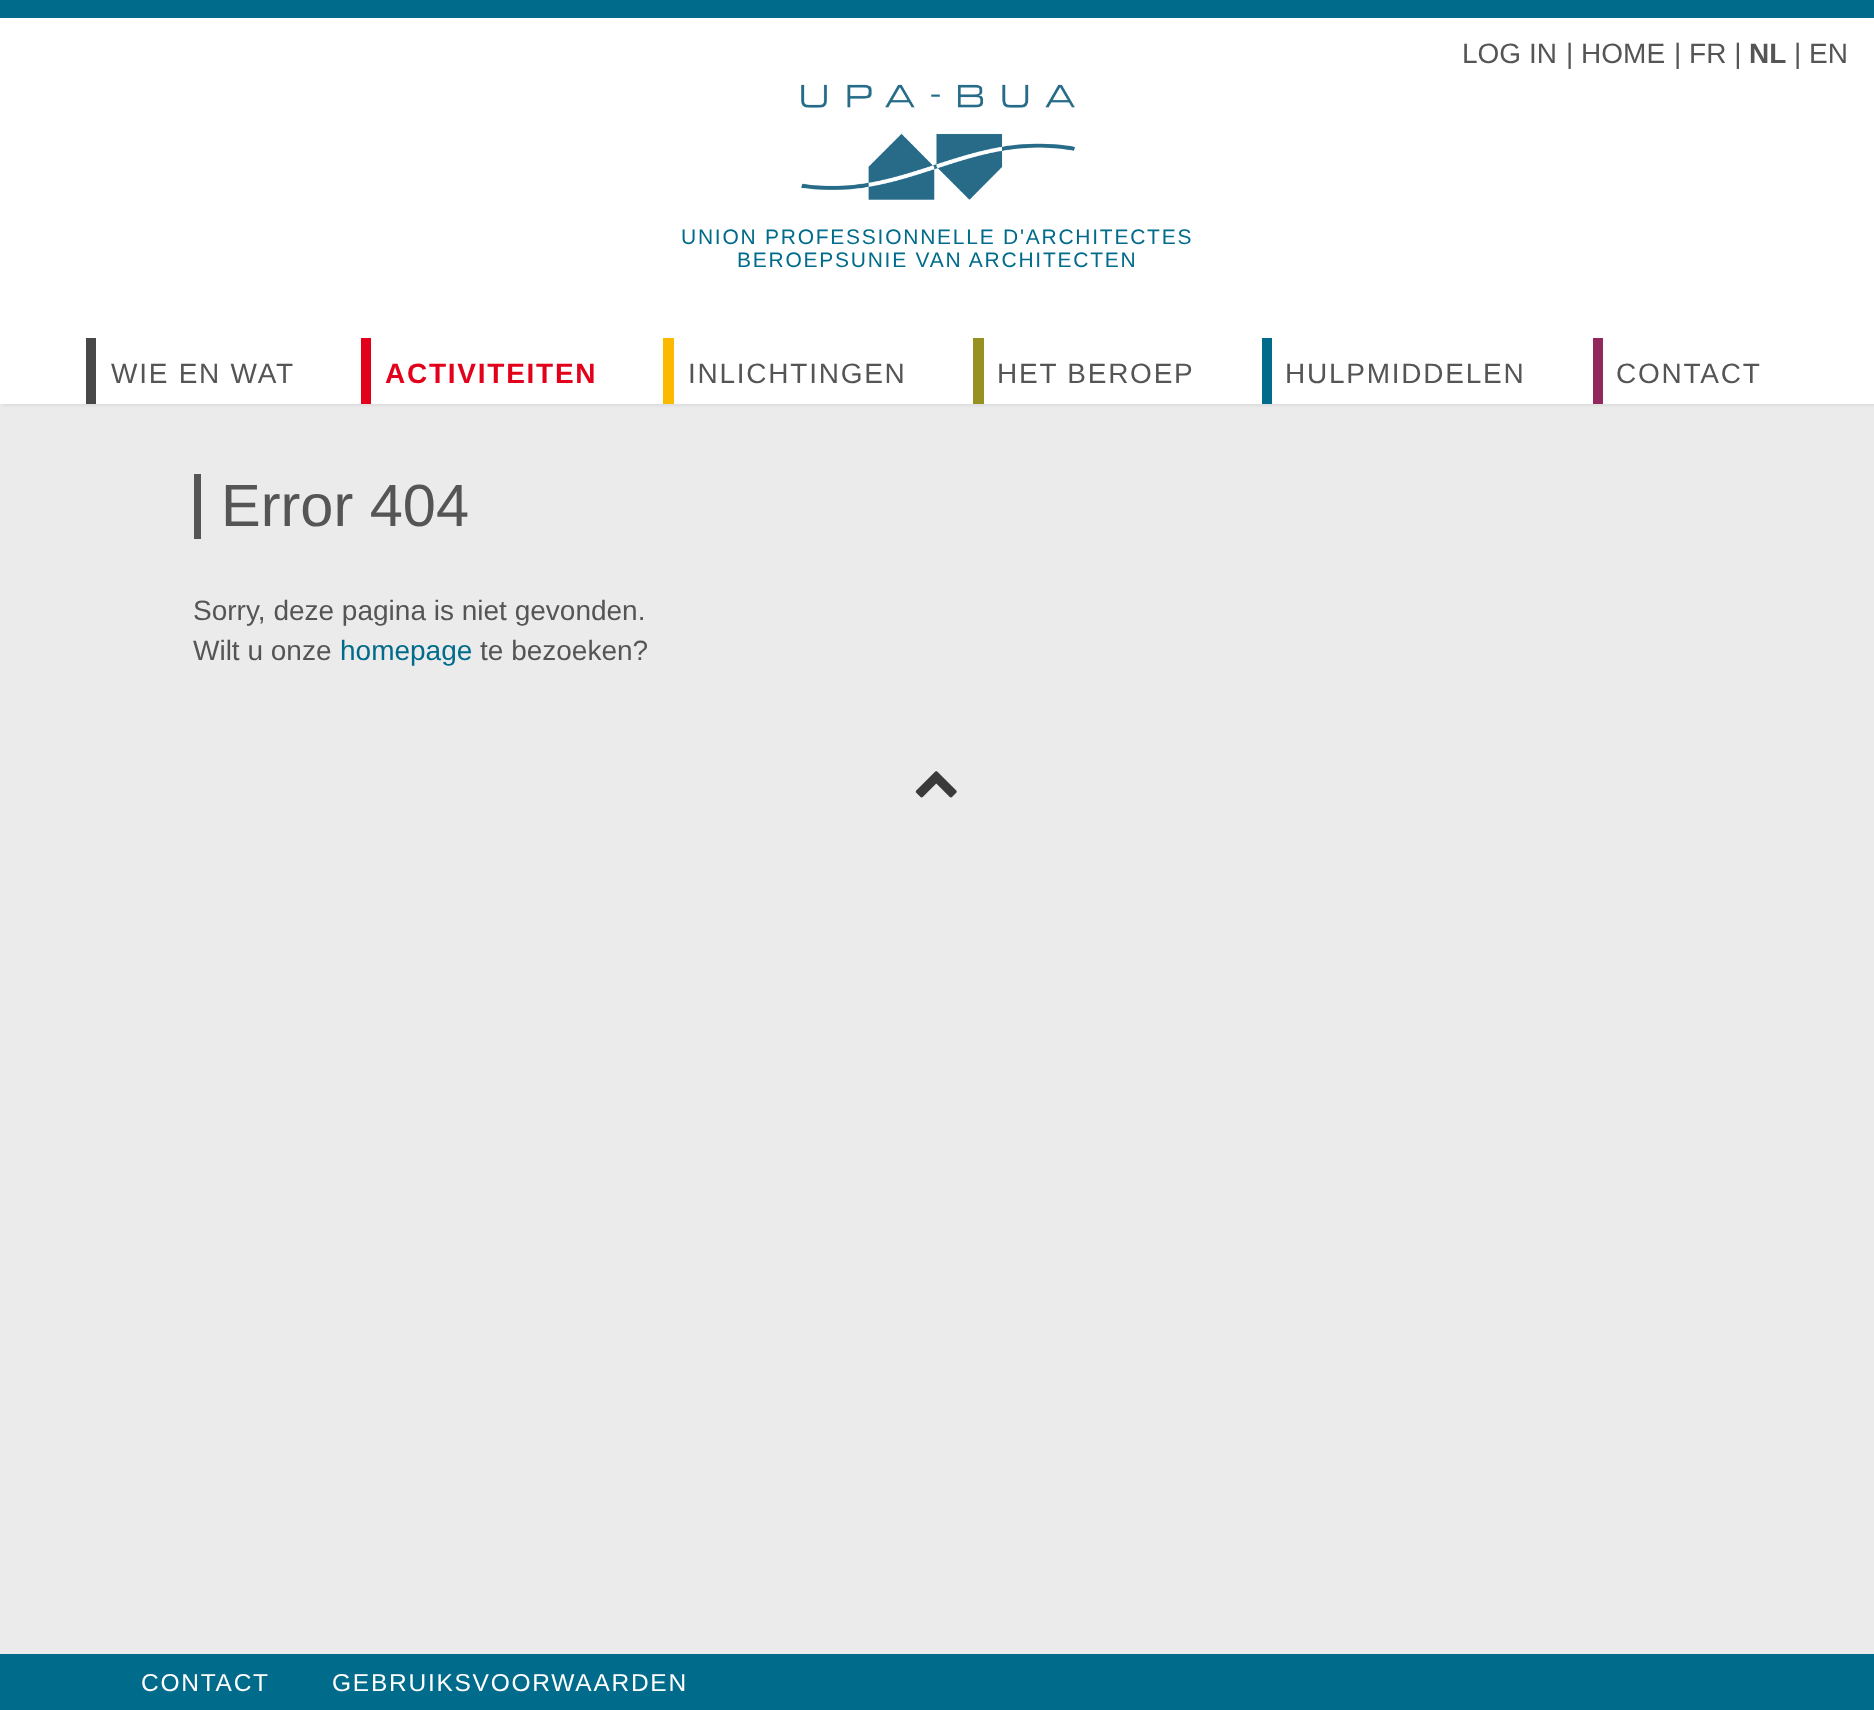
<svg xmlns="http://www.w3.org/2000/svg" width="1874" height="1710">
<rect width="100%" height="100%" fill="#ebebeb"/>
<rect x="2" y="2" width="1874" height="404" fill="#ddd" filter="blur(1px)"/>
<rect y="18" width="1874" height="386" fill="#fff"/>
<rect width="1874" height="18" fill="#006b8b"/>
<text x="1462" y="63" style="font-family:Liberation Sans;font-size:28px;fill:#555">LOG IN</text>
<text x="1566" y="63" style="font-family:Liberation Sans;font-size:28px;fill:#555">| HOME</text>
<text x="1674" y="63" style="font-family:Liberation Sans;font-size:28px;fill:#555">| FR |</text>
<text x="1749" y="63" style="font-family:Liberation Sans;font-size:28px;font-weight:bold;fill:#555">NL</text>
<text x="1794" y="63" style="font-family:Liberation Sans;font-size:28px;fill:#555">| EN</text>
<image x="801" y="84" width="274" height="116" href="media/1.png"/>
<text x="681" y="244" style="font-family:Liberation Sans;font-size:21px;letter-spacing:1.75px;fill:#006b8b">UNION PROFESSIONNELLE D'ARCHITECTES</text>
<text x="737" y="267" style="font-family:Liberation Sans;font-size:21px;letter-spacing:1.75px;fill:#006b8b">BEROEPSUNIE VAN ARCHITECTEN</text>
<rect x="86" y="338" width="10" height="66" fill="#484848"/>
<text x="111" y="383" style="font-family:Liberation Sans;font-size:28px;letter-spacing:1.75px;fill:#555">WIE EN WAT</text>
<rect x="361" y="338" width="10" height="66" fill="#e2001a"/>
<text x="385" y="383" style="font-family:Liberation Sans;font-size:28px;font-weight:bold;letter-spacing:1.75px;fill:#e2001a">ACTIVITEITEN</text>
<rect x="663" y="338" width="11" height="66" fill="#fbba00"/>
<text x="688" y="383" style="font-family:Liberation Sans;font-size:28px;letter-spacing:1.75px;fill:#555">INLICHTINGEN</text>
<rect x="973" y="338" width="11" height="66" fill="#979121"/>
<text x="997" y="383" style="font-family:Liberation Sans;font-size:28px;letter-spacing:1.75px;fill:#555">HET BEROEP</text>
<rect x="1262" y="338" width="10" height="66" fill="#006b8b"/>
<text x="1285" y="383" style="font-family:Liberation Sans;font-size:28px;letter-spacing:1.75px;fill:#555">HULPMIDDELEN</text>
<rect x="1593" y="338" width="10" height="66" fill="#93285e"/>
<text x="1616" y="383" style="font-family:Liberation Sans;font-size:28px;letter-spacing:1.75px;fill:#555">CONTACT</text>
<rect x="194" y="474" width="7" height="65" fill="#555"/>
<text x="221" y="526" style="font-family:Liberation Sans;font-size:59.5px;fill:#555">Error 404</text>
<text x="193" y="620" style="font-family:Liberation Sans;font-size:28px;fill:#555">Sorry, deze pagina is niet gevonden.</text>
<text x="193" y="660" style="font-family:Liberation Sans;font-size:28px;fill:#555">Wilt u onze</text>
<text x="340" y="660" style="font-family:Liberation Sans;font-size:28px;fill:#006b8b">homepage</text>
<text x="480" y="660" style="font-family:Liberation Sans;font-size:28px;fill:#555">te bezoeken?</text>
<image x="915" y="771" width="42" height="27" href="media/2.png"/>
<rect y="1654" width="1874" height="56" fill="#006b8b"/>
<text x="141" y="1691" style="font-family:Liberation Sans;font-size:24.5px;letter-spacing:1.75px;fill:#fff">CONTACT</text>
<text x="332" y="1691" style="font-family:Liberation Sans;font-size:24.5px;letter-spacing:1.75px;fill:#fff">GEBRUIKSVOORWAARDEN</text>
</svg>
